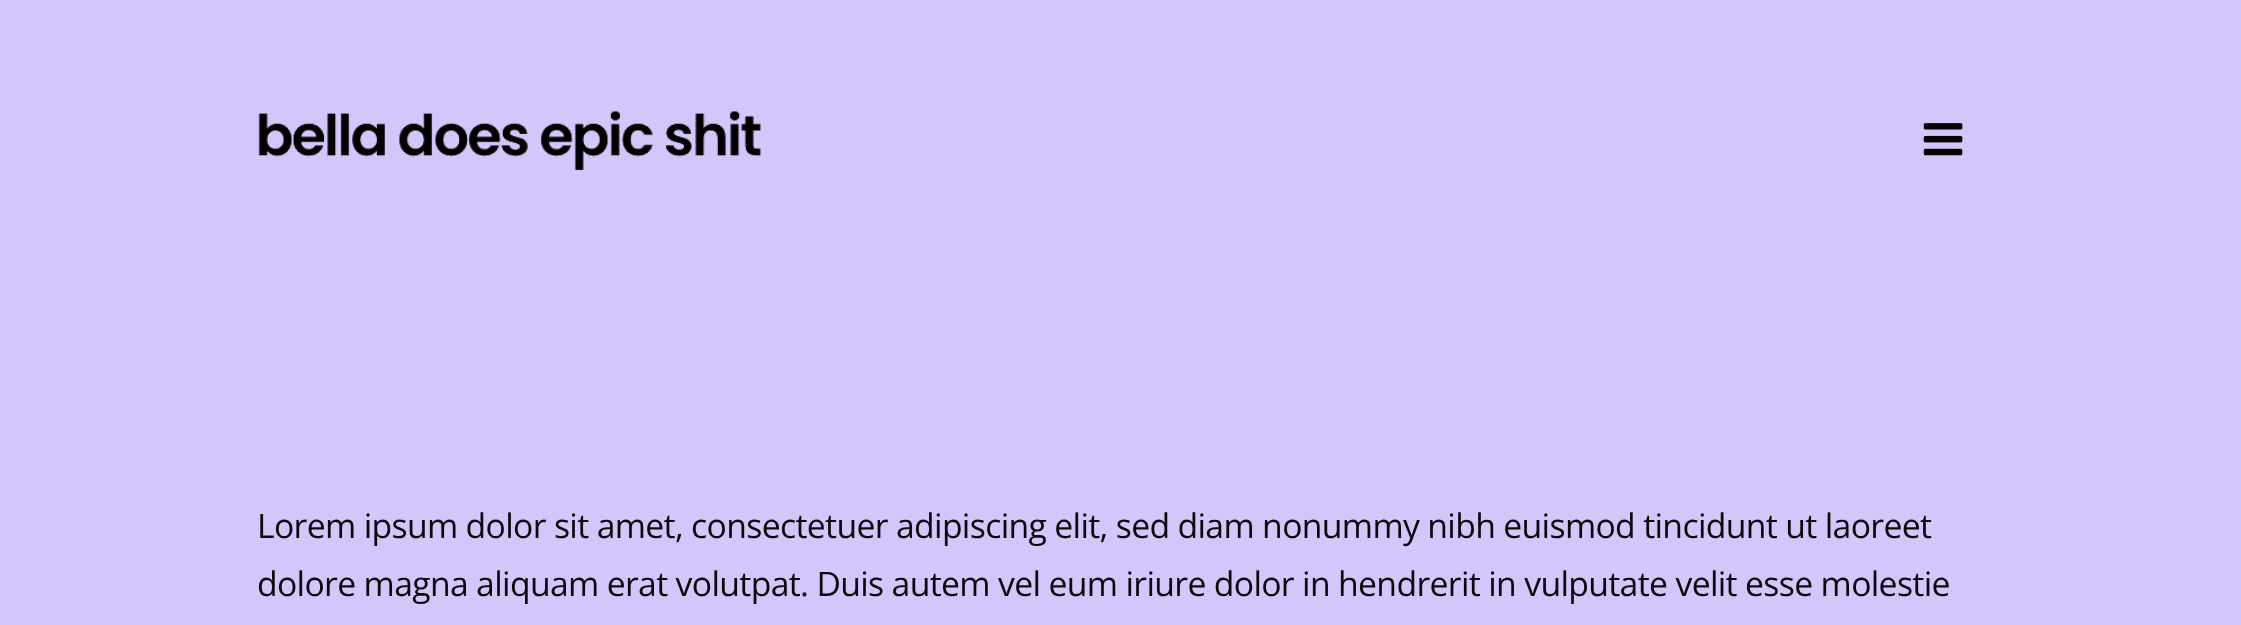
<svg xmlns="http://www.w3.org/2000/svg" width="2241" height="625">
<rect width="100%" height="100%" fill="#d4c5fb"/>
<image x="258" y="111" width="503" height="60" href="media/1.png"/>
<image x="1923" y="123" width="40" height="33" href="media/2.png"/>
<text x="257" y="538" style="font-family:Open Sans;font-size:33.75px;letter-spacing:-0.67px;fill:#0a0a0a">Lorem ipsum dolor sit amet, consectetuer adipiscing elit, sed diam nonummy nibh euismod tincidunt ut laoreet</text>
<text x="257" y="596" style="font-family:Open Sans;font-size:33.75px;letter-spacing:-0.67px;fill:#0a0a0a">dolore magna aliquam erat volutpat. Duis autem vel eum iriure dolor in hendrerit in vulputate velit esse molestie</text>
</svg>
